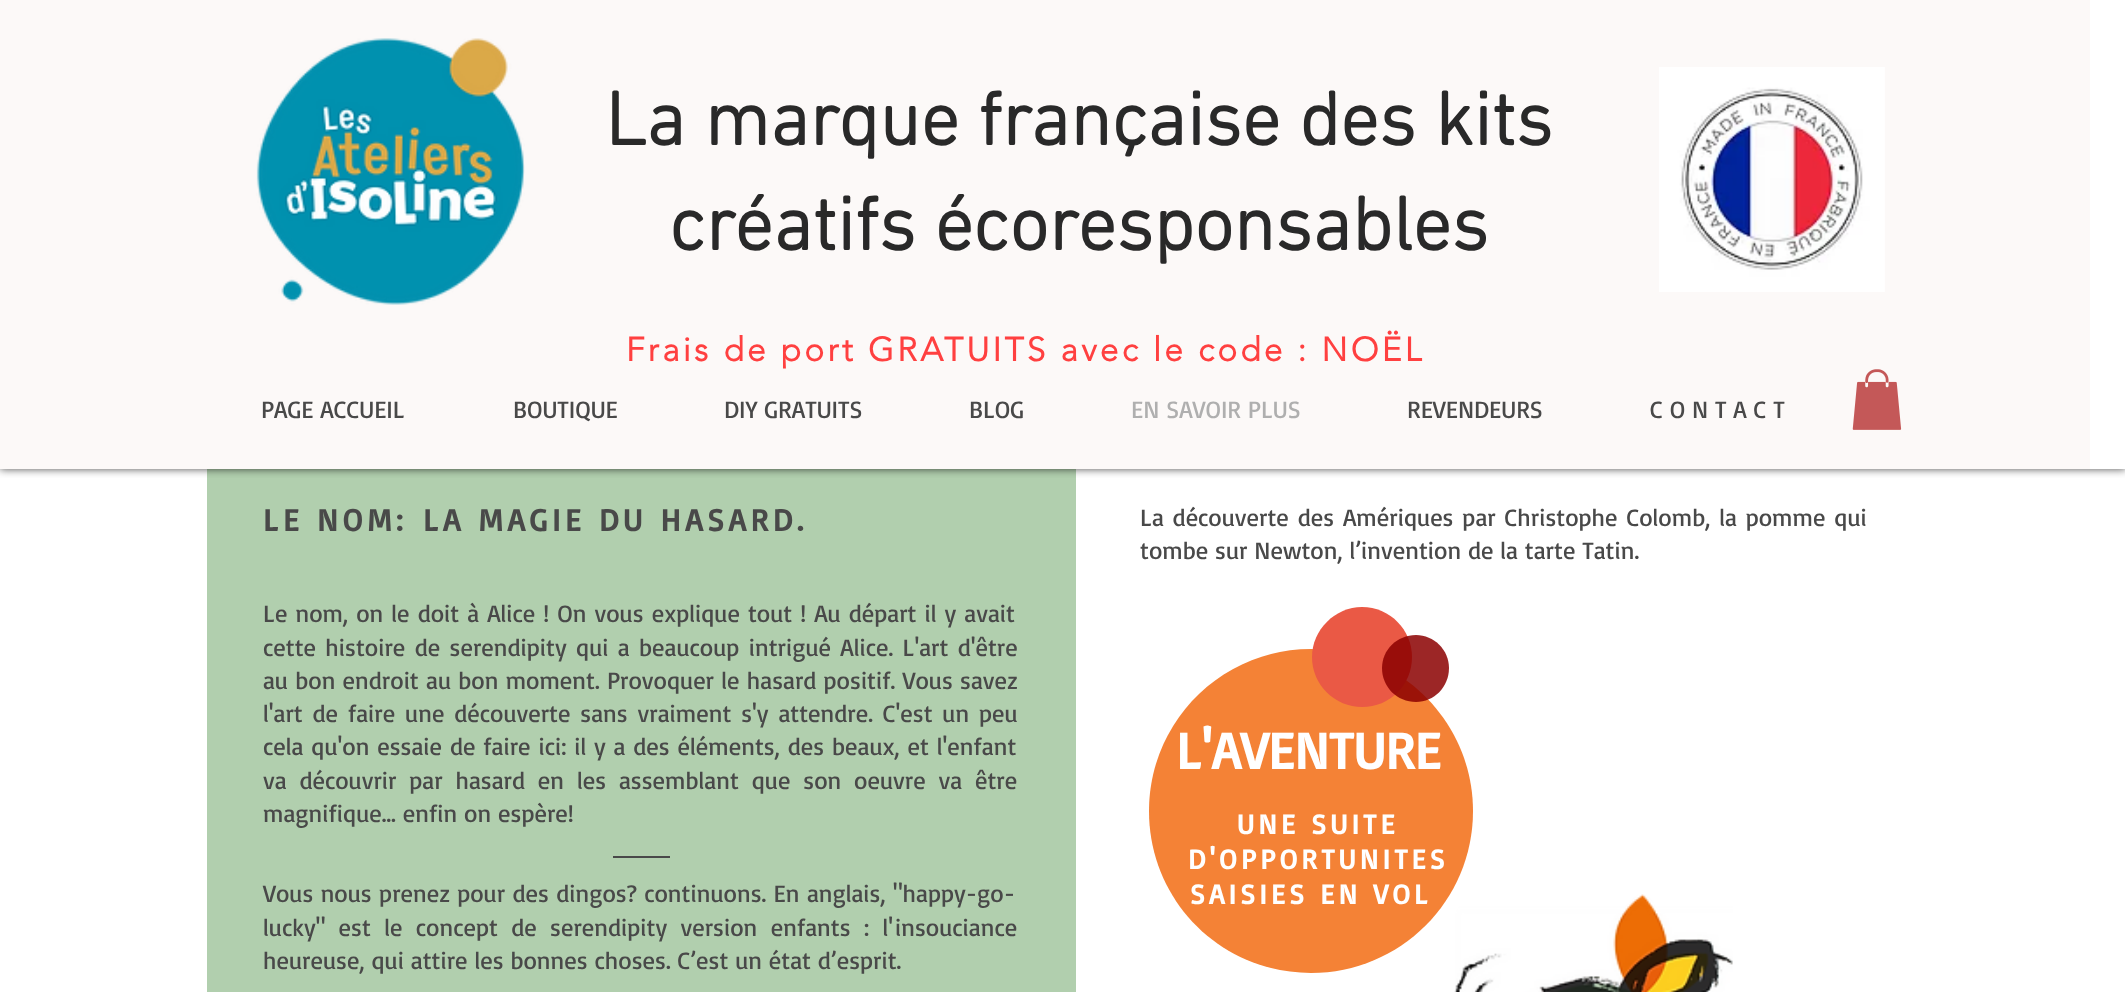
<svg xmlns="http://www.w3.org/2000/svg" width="2125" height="992">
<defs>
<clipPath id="clip1"><rect x="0" y="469" width="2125" height="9"/></clipPath>
</defs>
<rect width="100%" height="100%" fill="#fff"/>
<rect x="207" y="469" width="869" height="523" fill="#b1cfae"/>
<g clip-path="url(#clip1)">
<rect width="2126" height="469" fill="#000000b3" filter="blur(4.5px)"/>
</g>
<rect width="2090" height="469" fill="#fcf9f8"/>
<image x="256" y="38" width="269" height="267" href="media/1.png"/>
<text x="605" y="145" style="font-family:'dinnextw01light';font-size:77px;font-weight:bold;fill:#292929">La marque française des kits</text>
<text x="669" y="250" style="font-family:'dinnextw01light';font-size:77px;font-weight:bold;fill:#292929">créatifs écoresponsables</text>
<image x="1659" y="67" width="226" height="225" href="media/2.png"/>
<text x="626" y="361" style="font-family:'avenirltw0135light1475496';font-size:33.25px;font-weight:bold;letter-spacing:3.3px;fill:#ff4040">Frais de port GRATUITS avec le code : NOËL</text>
<text x="261" y="418" style="font-family:Basic;font-size:24.5px;fill:#494949">PAGE ACCUEIL</text>
<text x="513" y="418" style="font-family:Basic;font-size:24.5px;fill:#494949">BOUTIQUE</text>
<text x="724" y="418" style="font-family:Basic;font-size:24.5px;fill:#494949">DIY GRATUITS</text>
<text x="969" y="418" style="font-family:Basic;font-size:24.5px;fill:#494949">BLOG</text>
<text x="1131" y="418" style="font-family:Basic;font-size:24.5px;fill:#afafaf">EN SAVOIR PLUS</text>
<text x="1407" y="418" style="font-family:Basic;font-size:24.5px;fill:#494949">REVENDEURS</text>
<text x="1650" y="418" style="font-family:Basic;font-size:24.5px;fill:#494949">C O N T A C T</text>
<image x="1852" y="369" width="50" height="61" href="media/3.png"/>
<text x="263" y="531" style="font-family:Basic;font-size:31.5px;font-weight:bold;letter-spacing:4.75px;fill:#494949">LE NOM:</text>
<text x="423" y="531" style="font-family:Basic;font-size:31.5px;font-weight:bold;letter-spacing:4.75px;fill:#494949">LA MAGIE DU HASARD.</text>
<text x="263" y="622" word-spacing="1.2" style="font-family:Basic;font-size:24.5px;fill:#494949">Le nom, on le doit à Alice ! On vous explique tout ! Au départ il y avait</text>
<text x="263" y="656" word-spacing="2.5" style="font-family:Basic;font-size:24.5px;fill:#494949">cette histoire de serendipity qui a beaucoup intrigué Alice. L'art d'être</text>
<text x="263" y="689" word-spacing="0.4" style="font-family:Basic;font-size:24.5px;fill:#494949">au bon endroit au bon moment. Provoquer le hasard positif. Vous savez</text>
<text x="263" y="722" word-spacing="3" style="font-family:Basic;font-size:24.5px;fill:#494949">l'art de faire une découverte sans vraiment s'y attendre. C'est un peu</text>
<text x="263" y="755" word-spacing="1" style="font-family:Basic;font-size:24.5px;fill:#494949">cela qu'on essaie de faire ici: il y a des éléments, des beaux, et l'enfant</text>
<text x="263" y="789" word-spacing="6" style="font-family:Basic;font-size:24.5px;fill:#494949">va découvrir par hasard en les assemblant que son oeuvre va être</text>
<text x="263" y="822" style="font-family:Basic;font-size:24.5px;fill:#494949">magnifique… enfin on espère!</text>
<rect x="613" y="856" width="57" height="2" fill="#494949"/>
<text x="263" y="902" word-spacing="0.5" style="font-family:Basic;font-size:24.5px;fill:#494949">Vous nous prenez pour des dingos? continuons. En anglais, "happy-go-</text>
<text x="263" y="936" word-spacing="6.5" style="font-family:Basic;font-size:24.5px;fill:#494949">lucky" est le concept de serendipity version enfants : l'</text>
<text x="895" y="936" style="font-family:Basic;font-size:24.5px;fill:#494949">insouciance</text>
<text x="263" y="969" style="font-family:Basic;font-size:24.5px;fill:#494949">heureuse, qui attire les bonnes choses. C’est un état d’esprit.</text>
<text x="1140" y="526" word-spacing="2" style="font-family:Basic;font-size:24.5px;fill:#494949">La découverte des Amériques par Christophe Colomb, la pomme qui</text>
<text x="1140" y="559" style="font-family:Basic;font-size:24.5px;fill:#494949">tombe sur Newton, l’invention de la tarte Tatin.</text>
<image x="1454" y="894" width="279" height="98" href="media/4.png"/>
<path d="M1473 811c0 90-73 162-162 162c-90 0-162-72-162-162c0-89 72-162 162-162c89 0 162 73 162 162z" fill="#f48236"/>
<path d="M1412 657c0 28-22 50-50 50c-27 0-50-22-50-50c0-27 23-50 50-50c28 0 50 23 50 50z" fill="#ea5945"/>
<path d="M1449 668c0 19-15 34-33 34c-19 0-34-15-34-34c0-18 15-33 34-33c18 0 33 15 33 33z" fill="#8b0000d9"/>
<text x="1176" y="769" style="font-family:Basic;font-size:52.5px;font-weight:bold;fill:#fff">L'AVENTURE</text>
<text x="1237" y="834" style="font-family:Basic;font-size:28px;font-weight:bold;letter-spacing:4.25px;fill:#fff">UNE SUITE</text>
<text x="1188" y="869" style="font-family:Basic;font-size:28px;font-weight:bold;letter-spacing:4.25px;fill:#fff">D'OPPORTUNITES</text>
<text x="1190" y="904" style="font-family:Basic;font-size:28px;font-weight:bold;letter-spacing:4.25px;fill:#fff">SAISIES EN VOL</text>
</svg>
